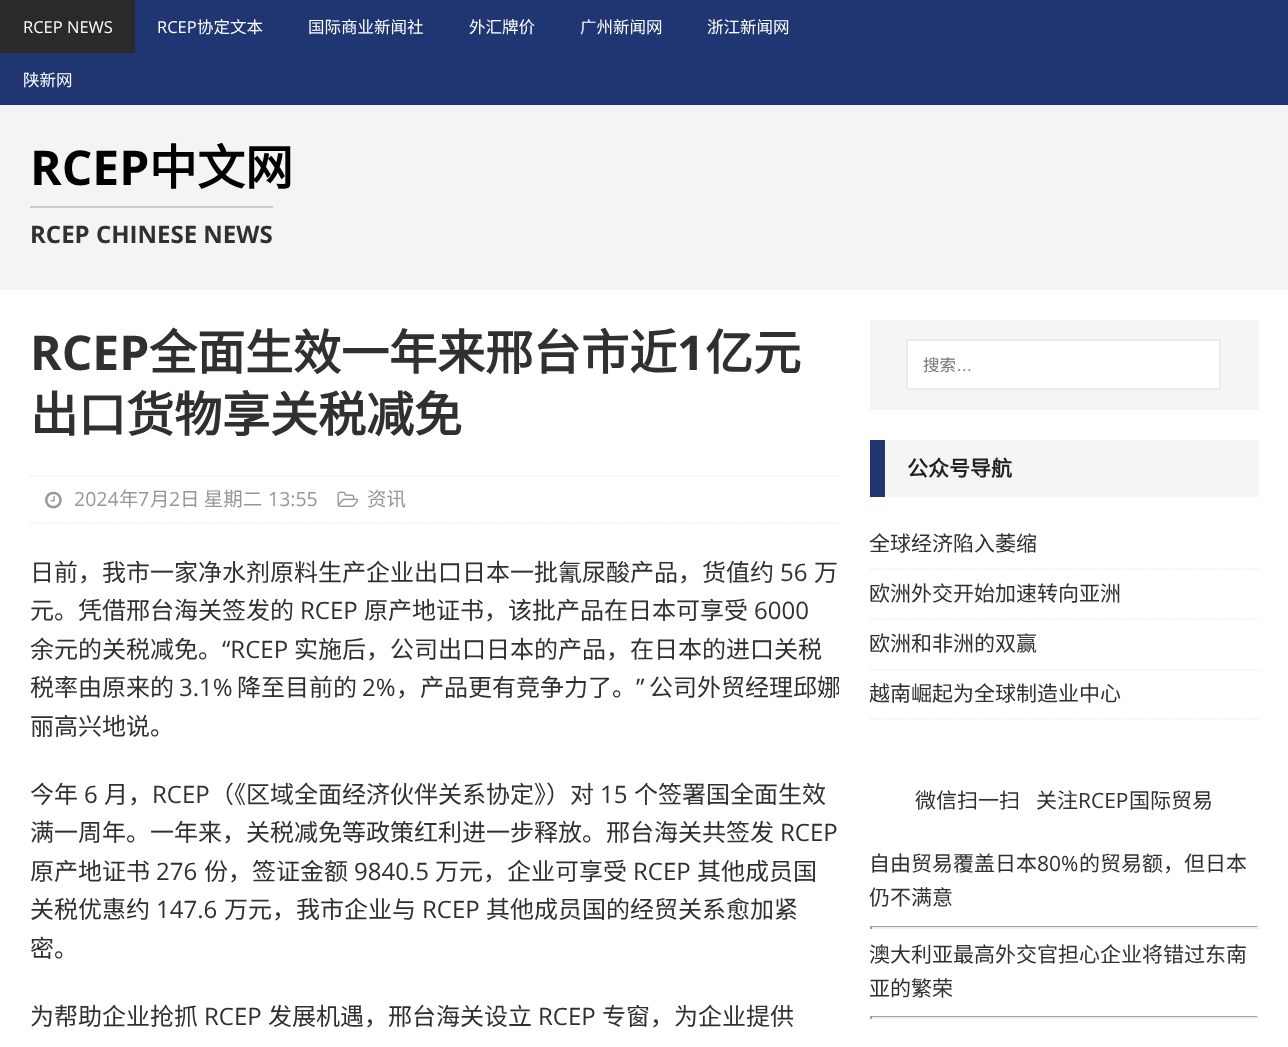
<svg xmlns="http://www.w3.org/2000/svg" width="1288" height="1047">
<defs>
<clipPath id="clip1"><rect x="30" y="320" width="809" height="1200"/></clipPath>
</defs>
<rect width="100%" height="100%" fill="#fff"/>
<rect width="1288" height="105" fill="#203672"/>
<rect width="135" height="53" fill="#2a2a2a"/>
<text x="23" y="33" style="font-family:Open Sans;font-size:16.5px;fill:#fff">RCEP NEWS</text>
<text x="157" y="33" style="font-family:Open Sans;font-size:16.5px;fill:#fff">RCEP</text>
<text x="197" y="33" style="font-family:Noto Sans CJK SC;font-size:16.5px;fill:#fff">协定文本</text>
<text x="308" y="33" style="font-family:Noto Sans CJK SC;font-size:16.5px;fill:#fff">国际商业新闻社</text>
<text x="469" y="33" style="font-family:Noto Sans CJK SC;font-size:16.5px;fill:#fff">外汇牌价</text>
<text x="580" y="33" style="font-family:Noto Sans CJK SC;font-size:16.5px;fill:#fff">广州新闻网</text>
<text x="707" y="33" style="font-family:Noto Sans CJK SC;font-size:16.5px;fill:#fff">浙江新闻网</text>
<text x="23" y="86" style="font-family:Noto Sans CJK SC;font-size:16.5px;fill:#fff">陕新网</text>
<rect y="105" width="1288" height="185" fill="#f4f4f4"/>
<text x="30" y="185" style="font-family:Open Sans;font-size:48px;font-weight:bold;fill:#000">RCEP</text>
<text x="149" y="185" style="font-family:Noto Sans CJK SC;font-size:48px;font-weight:bold;fill:#000">中文网</text>
<rect x="30" y="206" width="243" height="2" fill="#ccc"/>
<text x="30" y="243" style="font-family:Open Sans;font-size:24px;font-weight:bold;fill:#303030">RCEP CHINESE NEWS</text>
<text x="30" y="370" style="font-family:Open Sans;font-size:48px;font-weight:bold;fill:#303030">RCEP</text>
<text x="149" y="370" style="font-family:Noto Sans CJK SC;font-size:48px;font-weight:bold;fill:#303030">全面生效一年来邢台市近</text>
<text x="677" y="370" style="font-family:Open Sans;font-size:48px;font-weight:bold;fill:#303030">1</text>
<text x="705" y="370" style="font-family:Noto Sans CJK SC;font-size:48px;font-weight:bold;fill:#303030">亿元</text>
<text x="30" y="432" style="font-family:Noto Sans CJK SC;font-size:48px;font-weight:bold;fill:#303030">出口货物享关税减免</text>
<path d="M30 476h808.5" fill="none" stroke="#ebebeb" stroke-width="1.5" stroke-dasharray="1.5 1.5"/>
<path d="M30 523h808.5" fill="none" stroke="#ebebeb" stroke-width="1.5" stroke-dasharray="1.5 1.5"/>
<image x="45" y="491" width="17" height="18" href="media/1.png"/>
<text x="74" y="506" style="font-family:Open Sans;font-size:19.5px;fill:#979797">2024</text>
<text x="119" y="506" style="font-family:Noto Sans CJK SC;font-size:19.5px;fill:#979797">年</text>
<text x="138" y="506" style="font-family:Open Sans;font-size:19.5px;fill:#979797">7</text>
<text x="150" y="506" style="font-family:Noto Sans CJK SC;font-size:19.5px;fill:#979797">月</text>
<text x="169" y="506" style="font-family:Open Sans;font-size:19.5px;fill:#979797">2</text>
<text x="180" y="506" style="font-family:Noto Sans CJK SC;font-size:19.5px;fill:#979797">日 星期二</text>
<text x="268" y="506" style="font-family:Open Sans;font-size:19.5px;fill:#979797">13:55</text>
<image x="337" y="491" width="22" height="16" href="media/2.png"/>
<text x="367" y="506" style="font-family:Noto Sans CJK SC;font-size:19.5px;fill:#979797">资讯</text>
<text x="30" y="581" style="font-family:Noto Sans CJK SC;font-size:24px;fill:#303030">日前，我市一家净水剂原料生产企业出口日本一批氰尿酸产品，货值约</text>
<text x="780" y="581" style="font-family:Open Sans;font-size:24px;fill:#303030">56</text>
<text x="814" y="581" style="font-family:Noto Sans CJK SC;font-size:24px;fill:#303030">万</text>
<text x="30" y="619" style="font-family:Noto Sans CJK SC;font-size:24px;fill:#303030">元。凭借邢台海关签发的</text>
<text x="300" y="619" style="font-family:Open Sans;font-size:24px;fill:#303030">RCEP</text>
<text x="364" y="619" style="font-family:Noto Sans CJK SC;font-size:24px;fill:#303030">原产地证书，该批产品在日本可享受</text>
<text x="754" y="619" style="font-family:Open Sans;font-size:24px;fill:#303030">6000</text>
<text x="30" y="658" style="font-family:Noto Sans CJK SC;font-size:24px;fill:#303030">余元的关税减免。</text>
<text x="222" y="658" style="font-family:Open Sans;font-size:24px;fill:#303030">“RCEP</text>
<text x="294" y="658" style="font-family:Noto Sans CJK SC;font-size:24px;fill:#303030">实施后，公司出口日本的产品，在日本的进口关税</text>
<text x="30" y="696" style="font-family:Noto Sans CJK SC;font-size:24px;fill:#303030">税率由原来的</text>
<text x="179" y="696" style="font-family:Open Sans;font-size:24px;fill:#303030">3.1%</text>
<text x="237" y="696" style="font-family:Noto Sans CJK SC;font-size:24px;fill:#303030">降至目前的</text>
<text x="362" y="696" style="font-family:Open Sans;font-size:24px;fill:#303030">2%</text>
<text x="396" y="696" style="font-family:Noto Sans CJK SC;font-size:24px;fill:#303030">，产品更有竞争力了。</text>
<text x="636" y="696" style="font-family:Open Sans;font-size:24px;fill:#303030">”</text>
<g clip-path="url(#clip1)">
<text x="649" y="696" style="font-family:Noto Sans CJK SC;font-size:24px;fill:#303030">公司外贸经理邱娜</text>
</g>
<text x="30" y="735" style="font-family:Noto Sans CJK SC;font-size:24px;fill:#303030">丽高兴地说。</text>
<text x="30" y="803" style="font-family:Noto Sans CJK SC;font-size:24px;fill:#303030">今年</text>
<text x="84" y="803" style="font-family:Open Sans;font-size:24px;fill:#303030">6</text>
<text x="104" y="803" style="font-family:Noto Sans CJK SC;font-size:24px;fill:#303030">月，</text>
<text x="152" y="803" style="font-family:Open Sans;font-size:24px;fill:#303030">RCEP</text>
<text x="210" y="803" style="font-family:Noto Sans CJK SC;font-size:24px;fill:#303030">（《区域全面经济伙伴关系协定》）对</text>
<text x="600" y="803" style="font-family:Open Sans;font-size:24px;fill:#303030">15</text>
<text x="634" y="803" style="font-family:Noto Sans CJK SC;font-size:24px;fill:#303030">个签署国全面生效</text>
<text x="30" y="841" style="font-family:Noto Sans CJK SC;font-size:24px;fill:#303030">满一周年。一年来，关税减免等政策红利进一步释放。邢台海关共签发</text>
<text x="780" y="841" style="font-family:Open Sans;font-size:24px;fill:#303030">RCEP</text>
<text x="30" y="880" style="font-family:Noto Sans CJK SC;font-size:24px;fill:#303030">原产地证书</text>
<text x="156" y="880" style="font-family:Open Sans;font-size:24px;fill:#303030">276</text>
<text x="204" y="880" style="font-family:Noto Sans CJK SC;font-size:24px;fill:#303030">份，签证金额</text>
<text x="354" y="880" style="font-family:Open Sans;font-size:24px;fill:#303030">9840.5</text>
<text x="435" y="880" style="font-family:Noto Sans CJK SC;font-size:24px;fill:#303030">万元，企业可享受</text>
<text x="633" y="880" style="font-family:Open Sans;font-size:24px;fill:#303030">RCEP</text>
<text x="697" y="880" style="font-family:Noto Sans CJK SC;font-size:24px;fill:#303030">其他成员国</text>
<text x="30" y="918" style="font-family:Noto Sans CJK SC;font-size:24px;fill:#303030">关税优惠约</text>
<text x="156" y="918" style="font-family:Open Sans;font-size:24px;fill:#303030">147.6</text>
<text x="224" y="918" style="font-family:Noto Sans CJK SC;font-size:24px;fill:#303030">万元，我市企业与</text>
<text x="422" y="918" style="font-family:Open Sans;font-size:24px;fill:#303030">RCEP</text>
<text x="486" y="918" style="font-family:Noto Sans CJK SC;font-size:24px;fill:#303030">其他成员国的经贸关系愈加紧</text>
<text x="30" y="957" style="font-family:Noto Sans CJK SC;font-size:24px;fill:#303030">密。</text>
<text x="30" y="1025" style="font-family:Noto Sans CJK SC;font-size:24px;fill:#303030">为帮助企业抢抓</text>
<text x="204" y="1025" style="font-family:Open Sans;font-size:24px;fill:#303030">RCEP</text>
<text x="268" y="1025" style="font-family:Noto Sans CJK SC;font-size:24px;fill:#303030">发展机遇，邢台海关设立</text>
<text x="538" y="1025" style="font-family:Open Sans;font-size:24px;fill:#303030">RCEP</text>
<text x="602" y="1025" style="font-family:Noto Sans CJK SC;font-size:24px;fill:#303030">专窗，为企业提供</text>
<rect x="870" y="320" width="389" height="90" fill="#f5f5f5"/>
<rect x="907" y="340" width="313" height="49" fill="#fff" stroke="#ebebeb" stroke-width="2"/>
<text x="923" y="371" style="font-family:Noto Sans CJK SC;font-size:16.5px;fill:#757575">搜索</text>
<text x="956" y="371" style="font-family:Liberation Sans;font-size:16.5px;fill:#757575">…</text>
<rect x="885" y="440" width="374" height="57" fill="#f5f5f5"/>
<rect x="870" y="440" width="15" height="57" fill="#203672"/>
<text x="907" y="476" style="font-family:Noto Sans CJK SC;font-size:21px;font-weight:bold;fill:#212121">公众号导航</text>
<path d="M870 569h388.5" fill="none" stroke="#ebebeb" stroke-width="1.5" stroke-dasharray="1.5 1.5"/>
<text x="869" y="551" style="font-family:Noto Sans CJK SC;font-size:21px;fill:#303030">全球经济陷入萎缩</text>
<path d="M870 619h388.5" fill="none" stroke="#ebebeb" stroke-width="1.5" stroke-dasharray="1.5 1.5"/>
<text x="869" y="601" style="font-family:Noto Sans CJK SC;font-size:21px;fill:#303030">欧洲外交开始加速转向亚洲</text>
<path d="M870 670h388.5" fill="none" stroke="#ebebeb" stroke-width="1.5" stroke-dasharray="1.5 1.5"/>
<text x="869" y="651" style="font-family:Noto Sans CJK SC;font-size:21px;fill:#303030">欧洲和非洲的双赢</text>
<path d="M870 719h388.5" fill="none" stroke="#ebebeb" stroke-width="1.5" stroke-dasharray="1.5 1.5"/>
<text x="869" y="701" style="font-family:Noto Sans CJK SC;font-size:21px;fill:#303030">越南崛起为全球制造业中心</text>
<text x="915" y="808" style="font-family:Noto Sans CJK SC;font-size:21px;fill:#303030">微信扫一扫</text>
<text x="1036" y="808" style="font-family:Noto Sans CJK SC;font-size:21px;fill:#303030">关注</text>
<text x="1078" y="808" style="font-family:Open Sans;font-size:21px;fill:#303030">RCEP</text>
<text x="1129" y="808" style="font-family:Noto Sans CJK SC;font-size:21px;fill:#303030">国际贸易</text>
<text x="869" y="871" style="font-family:Noto Sans CJK SC;font-size:21px;fill:#303030">自由贸易覆盖日本</text>
<text x="1037" y="871" style="font-family:Open Sans;font-size:21px;fill:#303030">80%</text>
<text x="1079" y="871" style="font-family:Noto Sans CJK SC;font-size:21px;fill:#303030">的贸易额，但日本</text>
<text x="869" y="905" style="font-family:Noto Sans CJK SC;font-size:21px;fill:#303030">仍不满意</text>
<rect x="870" y="926" width="389" height="1" fill="#9f9f9f"/>
<rect x="1257" y="926" width="2" height="3" fill="#eee"/>
<rect x="870" y="927" width="389" height="2" fill="#eee"/>
<rect x="870" y="926" width="2" height="3" fill="#9f9f9f"/>
<text x="869" y="962" style="font-family:Noto Sans CJK SC;font-size:21px;fill:#303030">澳大利亚最高外交官担心企业将错过东南</text>
<text x="869" y="996" style="font-family:Noto Sans CJK SC;font-size:21px;fill:#303030">亚的繁荣</text>
<rect x="870" y="1016" width="389" height="1" fill="#9f9f9f"/>
<rect x="1257" y="1016" width="2" height="3" fill="#eee"/>
<rect x="870" y="1017" width="389" height="2" fill="#eee"/>
<rect x="870" y="1016" width="2" height="3" fill="#9f9f9f"/>
</svg>
